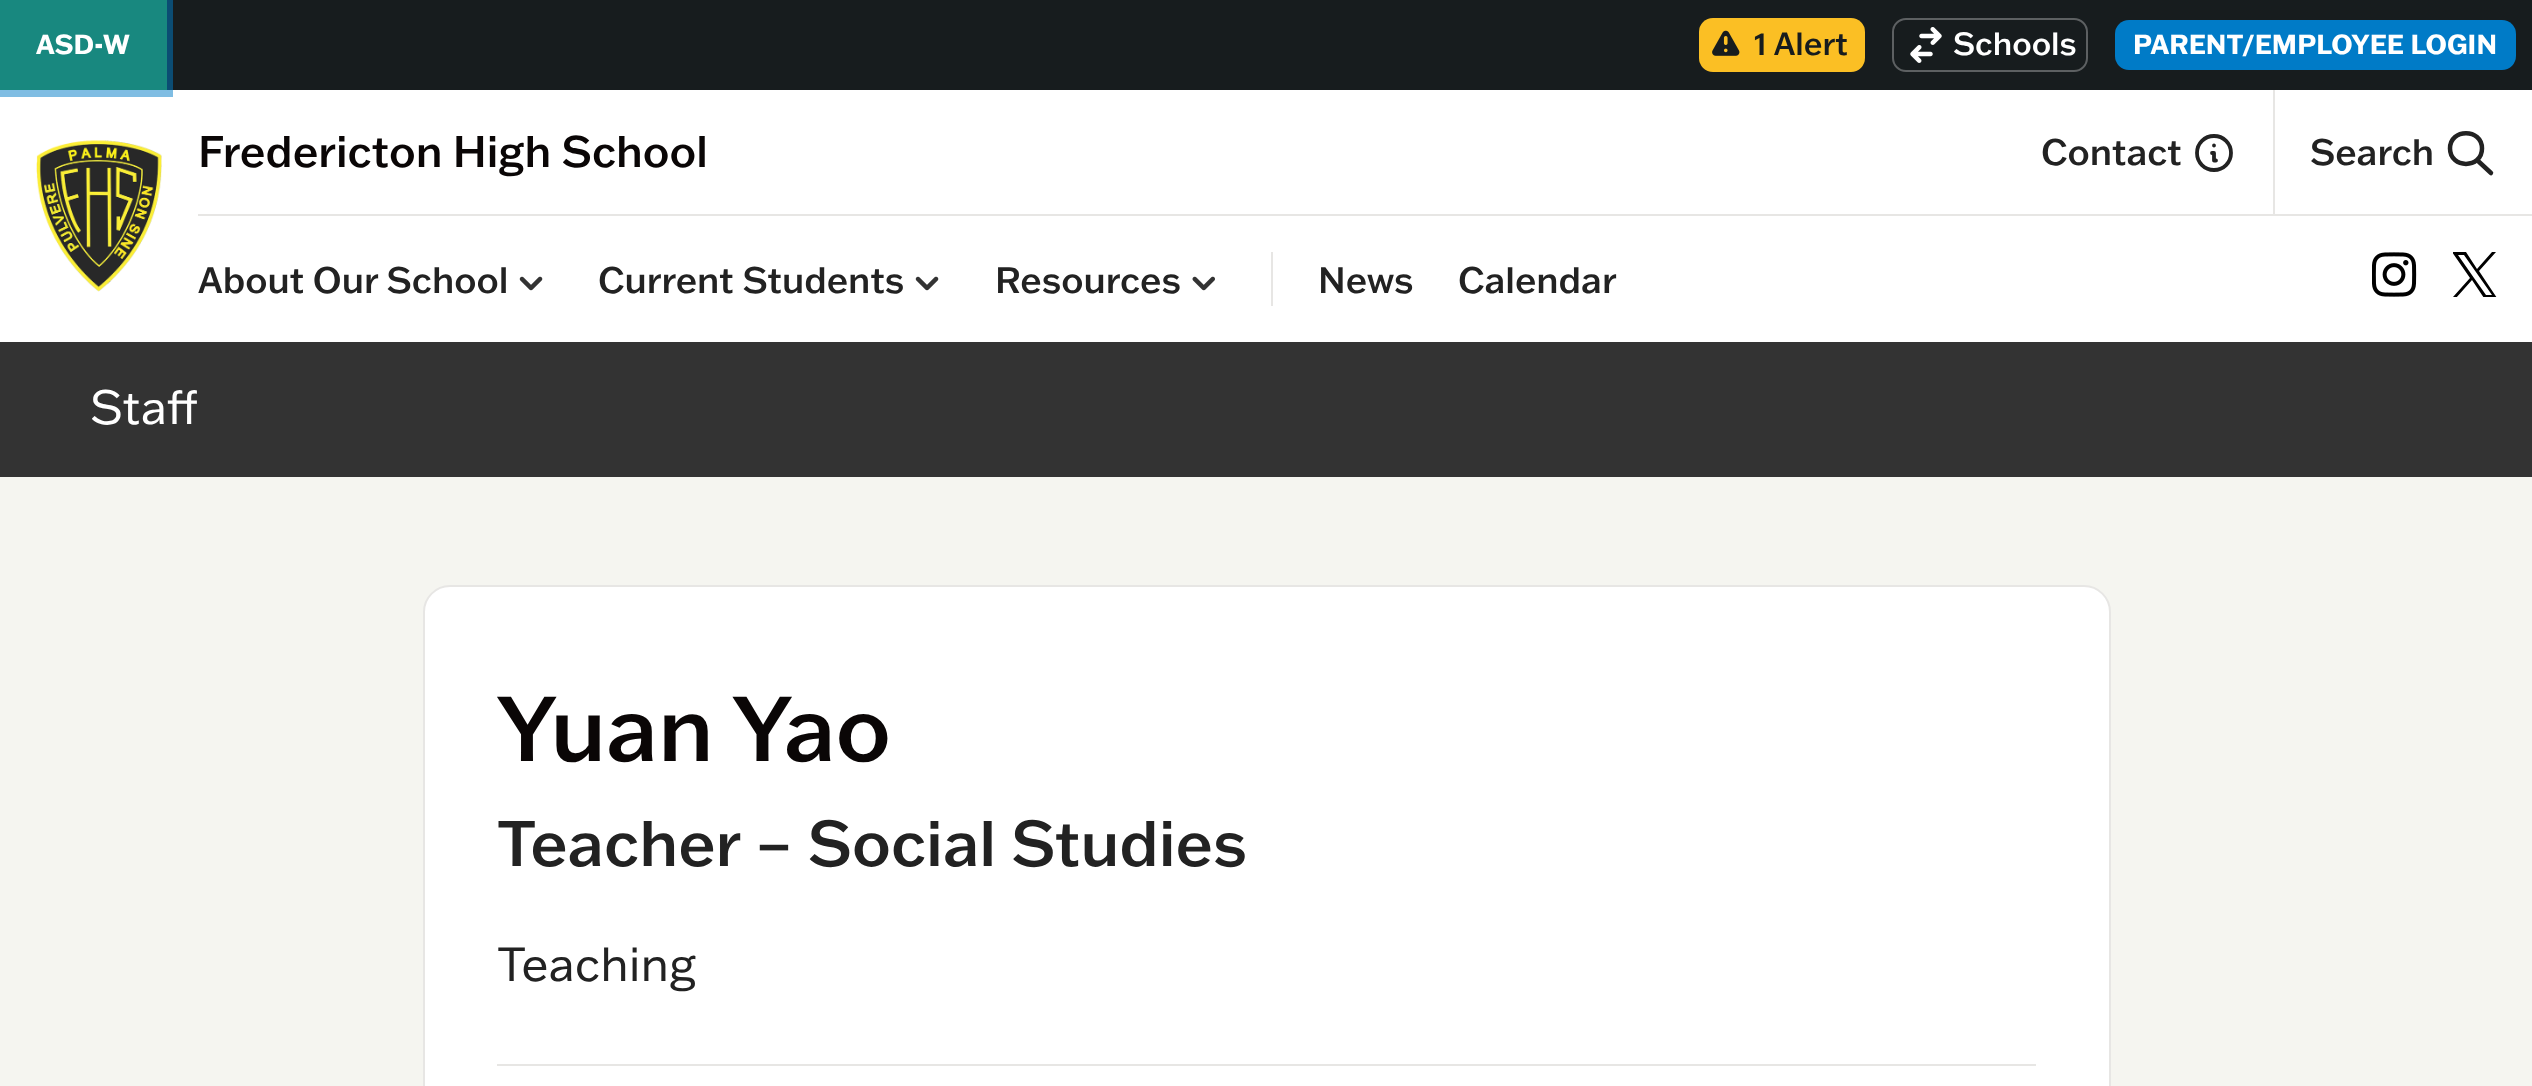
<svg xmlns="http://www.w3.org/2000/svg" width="2532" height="1086">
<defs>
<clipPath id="clip1"><rect x="2453" y="252" width="45" height="45"/></clipPath>
</defs>
<rect width="100%" height="100%" fill="#fff"/>
<rect x="167" width="2365" height="90" fill="#171c1e"/>
<rect x="-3.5" y="-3.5" width="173" height="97" fill="none" stroke="#007bc780" stroke-width="7"/>
<rect width="167" height="90" fill="#18887f"/>
<text x="36" y="54" style="font-family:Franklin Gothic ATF;font-size:27px;font-weight:bold;fill:#fff">ASD-W</text>
<rect x="1699" y="18" width="166" height="54" rx="14" fill="#fbbf24"/>
<image x="1712" y="30" width="28" height="26" href="media/1.png"/>
<text x="1754" y="55" style="font-family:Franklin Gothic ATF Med;font-size:31.5px;font-weight:500;fill:#171c1e">1 Alert</text>
<rect x="1893" y="19" width="194" height="52" rx="13" fill="none" stroke="#5d6062" stroke-width="2"/>
<image x="1910" y="27" width="32" height="36" href="media/2.png"/>
<text x="1953" y="55" style="font-family:Franklin Gothic ATF Med;font-size:31.5px;font-weight:500;fill:#fff">Schools</text>
<rect x="2115" y="20" width="401" height="50" rx="14" fill="#007bc7"/>
<text x="2133" y="54" style="font-family:Franklin Gothic ATF;font-size:27px;font-weight:bold;fill:#fff">PARENT/EMPLOYEE LOGIN</text>
<image x="36" y="140" width="126" height="152" href="media/3.png"/>
<rect x="198" y="214" width="2334" height="2" fill="#e7e6e4"/>
<text x="198" y="167" style="font-family:Franklin Gothic ATF Med;font-size:43.25px;font-weight:500;fill:#0a0606">Fredericton High School</text>
<text x="2041" y="165" style="font-family:Franklin Gothic ATF Med;font-size:36px;font-weight:500;fill:#222">Contact</text>
<path d="M2216 160.5h-2v-7.5h-2m2-7.5h0m17 7.5c0 9.5-7.5 17-17 17c-9.5 0-17-7.5-17-17c0-9.5 7.5-17 17-17c9.5 0 17 7.5 17 17z" fill="none" stroke="#222" stroke-width="3.8" stroke-linecap="round" stroke-linejoin="round"/>
<rect x="2273" y="90" width="2" height="124" fill="#e7e6e4"/>
<text x="2310" y="165" style="font-family:Franklin Gothic ATF Med;font-size:36px;font-weight:500;fill:#222">Search</text>
<path d="M2491 173l-14-13m5-11.5c0 20.5-32 20.5-32 0c0-20.5 32-20.5 32 0z" fill="none" stroke="#222" stroke-width="4.5" stroke-linecap="round" stroke-linejoin="round"/>
<text x="198" y="293" style="font-family:Franklin Gothic ATF Med;font-size:36px;font-weight:500;fill:#222">About Our School</text>
<image x="519" y="276" width="24" height="15" href="media/4.png"/>
<text x="598" y="293" style="font-family:Franklin Gothic ATF Med;font-size:36px;font-weight:500;fill:#222">Current Students</text>
<image x="915" y="276" width="24" height="15" href="media/4.png"/>
<text x="995" y="293" style="font-family:Franklin Gothic ATF Med;font-size:36px;font-weight:500;fill:#222">Resources</text>
<image x="1192" y="276" width="23" height="15" href="media/5.png"/>
<rect x="1271" y="252" width="2" height="54" fill="#e7e6e4"/>
<text x="1318" y="293" style="font-family:Franklin Gothic ATF Med;font-size:36px;font-weight:500;fill:#222">News</text>
<text x="1458" y="293" style="font-family:Franklin Gothic ATF Med;font-size:36px;font-weight:500;fill:#222">Calendar</text>
<image x="2372" y="252" width="45" height="45" href="media/6.png"/>
<g clip-path="url(#clip1)">
<path d="M2479 271l17-19h-4l-15 17l-11-17h-14l18 26l-18 20h4l16-18l12 18h13zm-5 7l-16-23h6l28 40h-6z" fill="#000"/>
</g>
<rect y="342" width="2532" height="135" fill="#333"/>
<text x="90" y="424" style="font-family:Franklin Gothic ATF;font-size:47px;fill:#fff">Staff</text>
<rect y="477" width="2532" height="609" fill="#f5f5f0"/>
<rect x="424" y="586" width="1686" height="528" rx="26" fill="#fff" stroke="#e7e6e4" stroke-width="2"/>
<text x="497" y="761" style="font-family:Franklin Gothic ATF Med;font-size:90px;font-weight:500;fill:#0a0606">Yuan Yao</text>
<text x="497" y="866" style="font-family:Franklin Gothic ATF Med;font-size:63px;font-weight:500;fill:#222">Teacher – Social Studies</text>
<rect x="497" y="1064" width="1539" height="2" fill="#e7e6e4"/>
<text x="497" y="981" style="font-family:Franklin Gothic ATF;font-size:47px;fill:#222">Teaching</text>
</svg>
